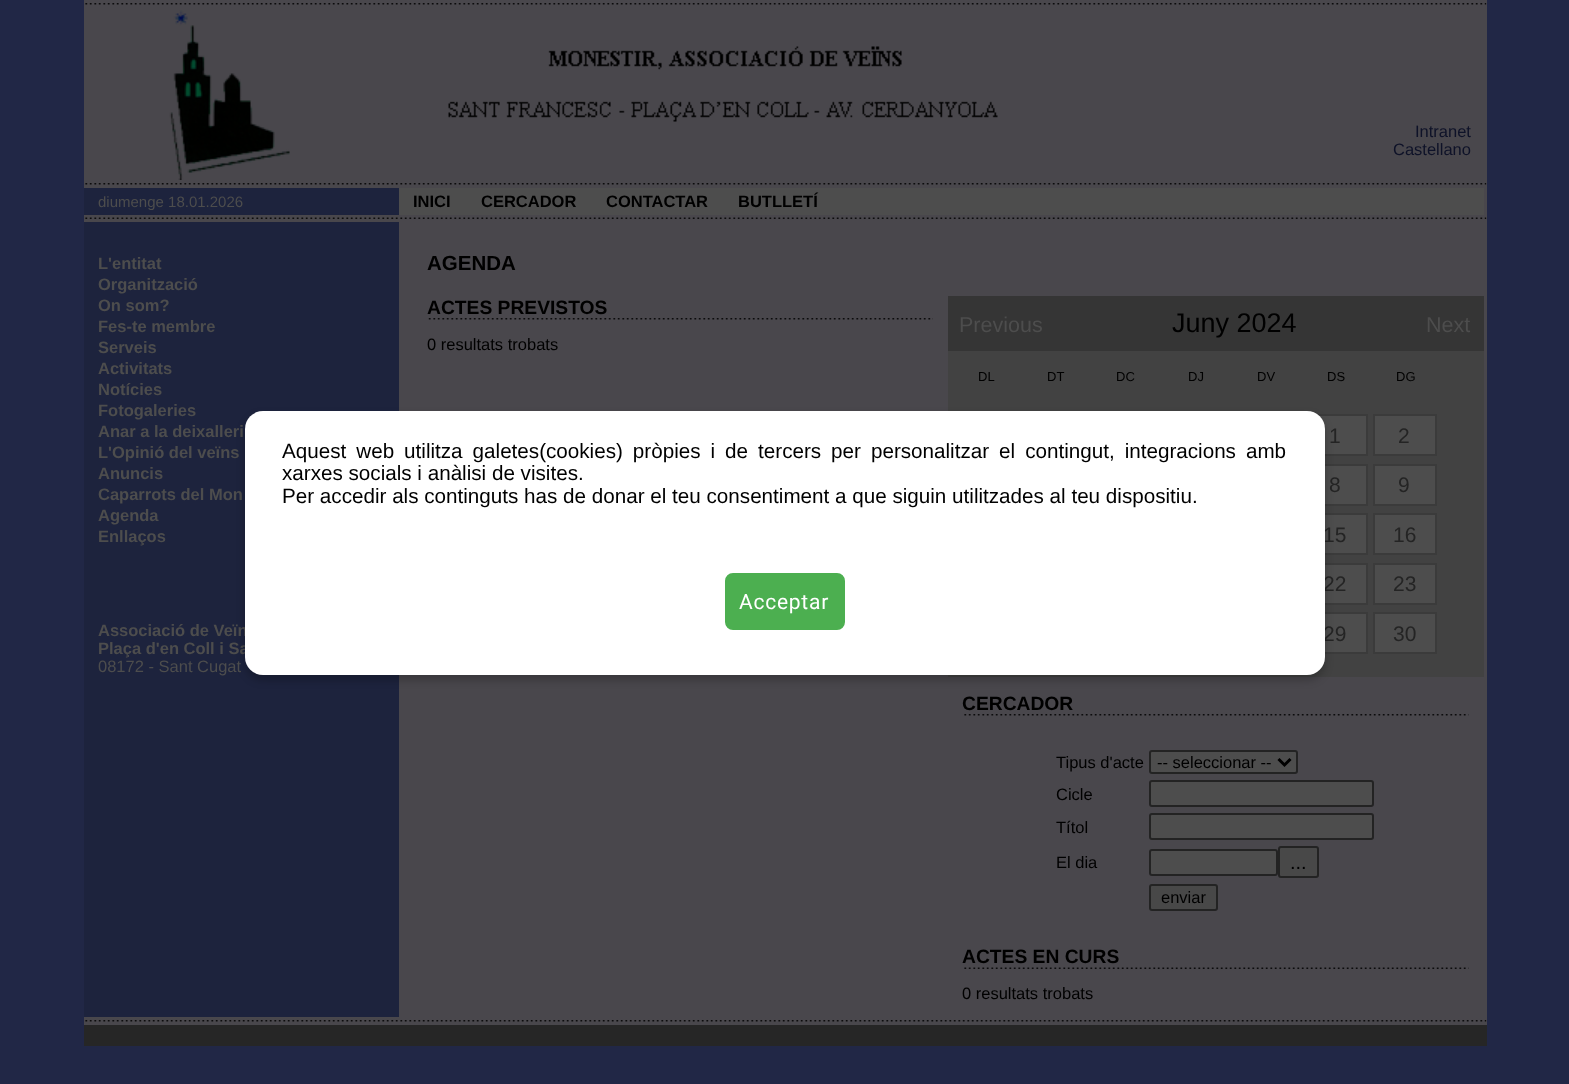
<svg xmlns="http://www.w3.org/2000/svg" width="1569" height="1084">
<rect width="100%" height="100%" fill="#212746"/>
<rect x="84" width="1403" height="1025" fill="#49474c"/>
<image x="85" y="3" width="1402" height="2" href="media/1.png"/>
<image x="169" y="10" width="121" height="170" href="media/2.png"/>
<image x="448" y="46" width="550" height="76" href="media/3.png"/>
<text x="1415" y="137" style="font-family:Liberation Sans;font-size:16.5px;fill:#0e1228">Intranet</text>
<text x="1393" y="155" style="font-family:Liberation Sans;font-size:16.5px;fill:#0e1228">Castellano</text>
<image x="85" y="183" width="1402" height="2" href="media/1.png"/>
<rect x="84" y="188" width="315" height="27" fill="#1d233d"/>
<text x="98" y="207" style="font-family:Liberation Sans;font-size:15px;fill:#4d4d4d">diumenge 18.01.2026</text>
<rect x="399" y="188" width="1085" height="27" fill="#4d4d4d"/>
<text x="413" y="207" style="font-family:Liberation Sans;font-size:16.5px;font-weight:bold;fill:#000">INICI</text>
<text x="481" y="207" style="font-family:Liberation Sans;font-size:16.5px;font-weight:bold;fill:#000">CERCADOR</text>
<text x="606" y="207" style="font-family:Liberation Sans;font-size:16.5px;font-weight:bold;fill:#000">CONTACTAR</text>
<text x="738" y="207" style="font-family:Liberation Sans;font-size:16.5px;font-weight:bold;fill:#000">BUTLLETÍ</text>
<image x="85" y="217" width="1402" height="2" href="media/4.png"/>
<rect x="84" y="222" width="315" height="795" fill="#1d233d"/>
<text x="98" y="269" style="font-family:Liberation Sans;font-size:16.5px;font-weight:bold;fill:#4d4d4d">L'entitat</text>
<text x="98" y="290" style="font-family:Liberation Sans;font-size:16.5px;font-weight:bold;fill:#4d4d4d">Organització</text>
<text x="98" y="311" style="font-family:Liberation Sans;font-size:16.5px;font-weight:bold;fill:#4d4d4d">On som?</text>
<text x="98" y="332" style="font-family:Liberation Sans;font-size:16.5px;font-weight:bold;fill:#4d4d4d">Fes-te membre</text>
<text x="98" y="353" style="font-family:Liberation Sans;font-size:16.5px;font-weight:bold;fill:#4d4d4d">Serveis</text>
<text x="98" y="374" style="font-family:Liberation Sans;font-size:16.5px;font-weight:bold;fill:#4d4d4d">Activitats</text>
<text x="98" y="395" style="font-family:Liberation Sans;font-size:16.5px;font-weight:bold;fill:#4d4d4d">Notícies</text>
<text x="98" y="416" style="font-family:Liberation Sans;font-size:16.5px;font-weight:bold;fill:#4d4d4d">Fotogaleries</text>
<text x="98" y="437" style="font-family:Liberation Sans;font-size:16.5px;font-weight:bold;fill:#4d4d4d">Anar a la deixalleri</text>
<text x="98" y="458" style="font-family:Liberation Sans;font-size:16.5px;font-weight:bold;fill:#4d4d4d">L'Opinió del veïns</text>
<text x="98" y="479" style="font-family:Liberation Sans;font-size:16.5px;font-weight:bold;fill:#4d4d4d">Anuncis</text>
<text x="98" y="500" style="font-family:Liberation Sans;font-size:16.5px;font-weight:bold;fill:#4d4d4d">Caparrots del Mon</text>
<text x="98" y="521" style="font-family:Liberation Sans;font-size:16.5px;font-weight:bold;fill:#4d4d4d">Agenda</text>
<text x="98" y="542" style="font-family:Liberation Sans;font-size:16.5px;font-weight:bold;fill:#4d4d4d">Enllaços</text>
<text x="98" y="636" style="font-family:Liberation Sans;font-size:16.5px;font-weight:bold;fill:#4d4d4d">Associació de Veïn</text>
<text x="98" y="654" style="font-family:Liberation Sans;font-size:16.5px;font-weight:bold;fill:#4d4d4d">Plaça d'en Coll i Sa</text>
<text x="98" y="672" style="font-family:Liberation Sans;font-size:16.5px;fill:#4d4d4d">08172 - Sant Cugat</text>
<text x="427" y="270" style="font-family:Liberation Sans;font-size:20.5px;font-weight:bold;fill:#000">AGENDA</text>
<image x="428" y="318" width="505" height="2" href="media/5.png"/>
<text x="427" y="314" style="font-family:Liberation Sans;font-size:19.25px;font-weight:bold;fill:#000">ACTES PREVISTOS</text>
<text x="427" y="350" style="font-family:Liberation Sans;font-size:16.5px;fill:#000">0 resultats trobats</text>
<rect x="948" y="296" width="536" height="55" fill="#353535"/>
<text x="959" y="332" style="font-family:Liberation Sans;font-size:21.5px;fill:#4d4d4d">Previous</text>
<text x="1172" y="332" style="font-family:Liberation Sans;font-size:27px;fill:#000">Juny 2024</text>
<text x="1426" y="332" style="font-family:Liberation Sans;font-size:21.5px;fill:#4d4d4d">Next</text>
<rect x="948" y="351" width="536" height="326" fill="#424242"/>
<text x="978" y="381" style="font-family:Liberation Sans;font-size:13px;fill:#000">DL</text>
<text x="1047" y="381" style="font-family:Liberation Sans;font-size:13px;fill:#000">DT</text>
<text x="1116" y="381" style="font-family:Liberation Sans;font-size:13px;fill:#000">DC</text>
<text x="1188" y="381" style="font-family:Liberation Sans;font-size:13px;fill:#000">DJ</text>
<text x="1257" y="381" style="font-family:Liberation Sans;font-size:13px;fill:#000">DV</text>
<text x="1327" y="381" style="font-family:Liberation Sans;font-size:13px;fill:#000">DS</text>
<text x="1396" y="381" style="font-family:Liberation Sans;font-size:13px;fill:#000">DG</text>
<rect x="1319" y="416" width="47" height="38" fill="#4d4d4d"/>
<rect x="1303" y="415" width="64" height="40" fill="none" stroke="#3b3b3b" stroke-width="2"/>
<text x="1329" y="443" style="font-family:Liberation Sans;font-size:21px;fill:#242424">1</text>
<rect x="1374" y="415" width="62" height="40" fill="#4d4d4d" stroke="#3b3b3b" stroke-width="2"/>
<text x="1398" y="443" style="font-family:Liberation Sans;font-size:21px;fill:#242424">2</text>
<rect x="1325" y="466" width="41" height="38" fill="#4d4d4d"/>
<rect x="1303" y="465" width="64" height="40" fill="none" stroke="#3b3b3b" stroke-width="2"/>
<text x="1329" y="492" style="font-family:Liberation Sans;font-size:21px;fill:#242424">8</text>
<rect x="1374" y="465" width="62" height="40" fill="#4d4d4d" stroke="#3b3b3b" stroke-width="2"/>
<text x="1398" y="492" style="font-family:Liberation Sans;font-size:21px;fill:#242424">9</text>
<rect x="1325" y="515" width="41" height="38" fill="#4d4d4d"/>
<rect x="1303" y="514" width="64" height="40" fill="none" stroke="#3b3b3b" stroke-width="2"/>
<text x="1323" y="542" style="font-family:Liberation Sans;font-size:21px;fill:#242424">15</text>
<rect x="1374" y="514" width="62" height="40" fill="#4d4d4d" stroke="#3b3b3b" stroke-width="2"/>
<text x="1393" y="542" style="font-family:Liberation Sans;font-size:21px;fill:#242424">16</text>
<rect x="1325" y="565" width="41" height="38" fill="#4d4d4d"/>
<rect x="1303" y="564" width="64" height="40" fill="none" stroke="#3b3b3b" stroke-width="2"/>
<text x="1323" y="591" style="font-family:Liberation Sans;font-size:21px;fill:#242424">22</text>
<rect x="1374" y="564" width="62" height="40" fill="#4d4d4d" stroke="#3b3b3b" stroke-width="2"/>
<text x="1393" y="591" style="font-family:Liberation Sans;font-size:21px;fill:#242424">23</text>
<rect x="1325" y="614" width="41" height="38" fill="#4d4d4d"/>
<rect x="1303" y="613" width="64" height="40" fill="none" stroke="#3b3b3b" stroke-width="2"/>
<text x="1323" y="641" style="font-family:Liberation Sans;font-size:21px;fill:#242424">29</text>
<rect x="1374" y="613" width="62" height="40" fill="#4d4d4d" stroke="#3b3b3b" stroke-width="2"/>
<text x="1393" y="641" style="font-family:Liberation Sans;font-size:21px;fill:#242424">30</text>
<image x="964" y="714" width="505" height="2" href="media/6.png"/>
<text x="962" y="710" style="font-family:Liberation Sans;font-size:19.25px;font-weight:bold;fill:#000">CERCADOR</text>
<text x="1056" y="768" style="font-family:Liberation Sans;font-size:16.5px;fill:#000">Tipus d'acte</text>
<rect x="1150" y="751" width="147" height="22" rx="2" fill="#4d4d4d" stroke="#232323" stroke-width="2"/>
<path d="M1278.5 759l6 6l6-6" fill="none" stroke="#000" stroke-width="3"/>
<text x="1157" y="768" style="font-family:Liberation Sans;font-size:16.5px;fill:#000">-- seleccionar --</text>
<text x="1056" y="800" style="font-family:Liberation Sans;font-size:16.5px;fill:#000">Cicle</text>
<rect x="1150" y="781" width="223" height="25" rx="2" fill="#4d4d4d" stroke="#232323" stroke-width="2"/>
<text x="1056" y="833" style="font-family:Liberation Sans;font-size:16.5px;fill:#000">Títol</text>
<rect x="1150" y="814" width="223" height="25" rx="2" fill="#4d4d4d" stroke="#232323" stroke-width="2"/>
<text x="1056" y="868" style="font-family:Liberation Sans;font-size:16.5px;fill:#000">El dia</text>
<rect x="1150" y="850" width="127" height="25" rx="2" fill="#4d4d4d" stroke="#232323" stroke-width="2"/>
<rect x="1279" y="847" width="39" height="30" rx="2" fill="#484848" stroke="#232323" stroke-width="2"/>
<text x="1290" y="869" style="font-family:Liberation Sans;font-size:20px;fill:#000">...</text>
<rect x="1150" y="885" width="67" height="25" rx="2" fill="#484848" stroke="#232323" stroke-width="2"/>
<text x="1161" y="903" style="font-family:Liberation Sans;font-size:16.5px;fill:#000">enviar</text>
<image x="964" y="967" width="505" height="2" href="media/7.png"/>
<text x="962" y="963" style="font-family:Liberation Sans;font-size:19.25px;font-weight:bold;fill:#000">ACTES EN CURS</text>
<text x="962" y="999" style="font-family:Liberation Sans;font-size:16.5px;fill:#000">0 resultats trobats</text>
<image x="85" y="1020" width="1402" height="2" href="media/1.png"/>
<rect x="84" y="1025" width="1403" height="21" fill="#262626"/>
<rect x="245" y="416" width="1080" height="264" rx="18" fill="#0000003b" filter="blur(4.5px)"/>
<rect x="245" y="411" width="1080" height="264" rx="18" fill="#fff"/>
<text x="282" y="458" word-spacing="4.25" style="font-family:Liberation Sans;font-size:20.65px;fill:#000">Aquest web utilitza galetes(cookies) pròpies i de tercers per personalitzar el contingut, integracions amb</text>
<text x="282" y="480" style="font-family:Liberation Sans;font-size:20.65px;fill:#000">xarxes socials i anàlisi de visites.</text>
<text x="282" y="503" style="font-family:Liberation Sans;font-size:20.65px;fill:#000">Per accedir als continguts has de donar el teu consentiment a que siguin utilitzades al teu dispositiu.</text>
<rect x="726.5" y="574.5" width="117" height="54" rx="6.5" fill="#4caf50" stroke="#4caf50" stroke-width="3"/>
<text x="739" y="609" style="font-family:Roboto;font-size:21px;letter-spacing:0.75px;fill:#fff">Acceptar</text>
</svg>
